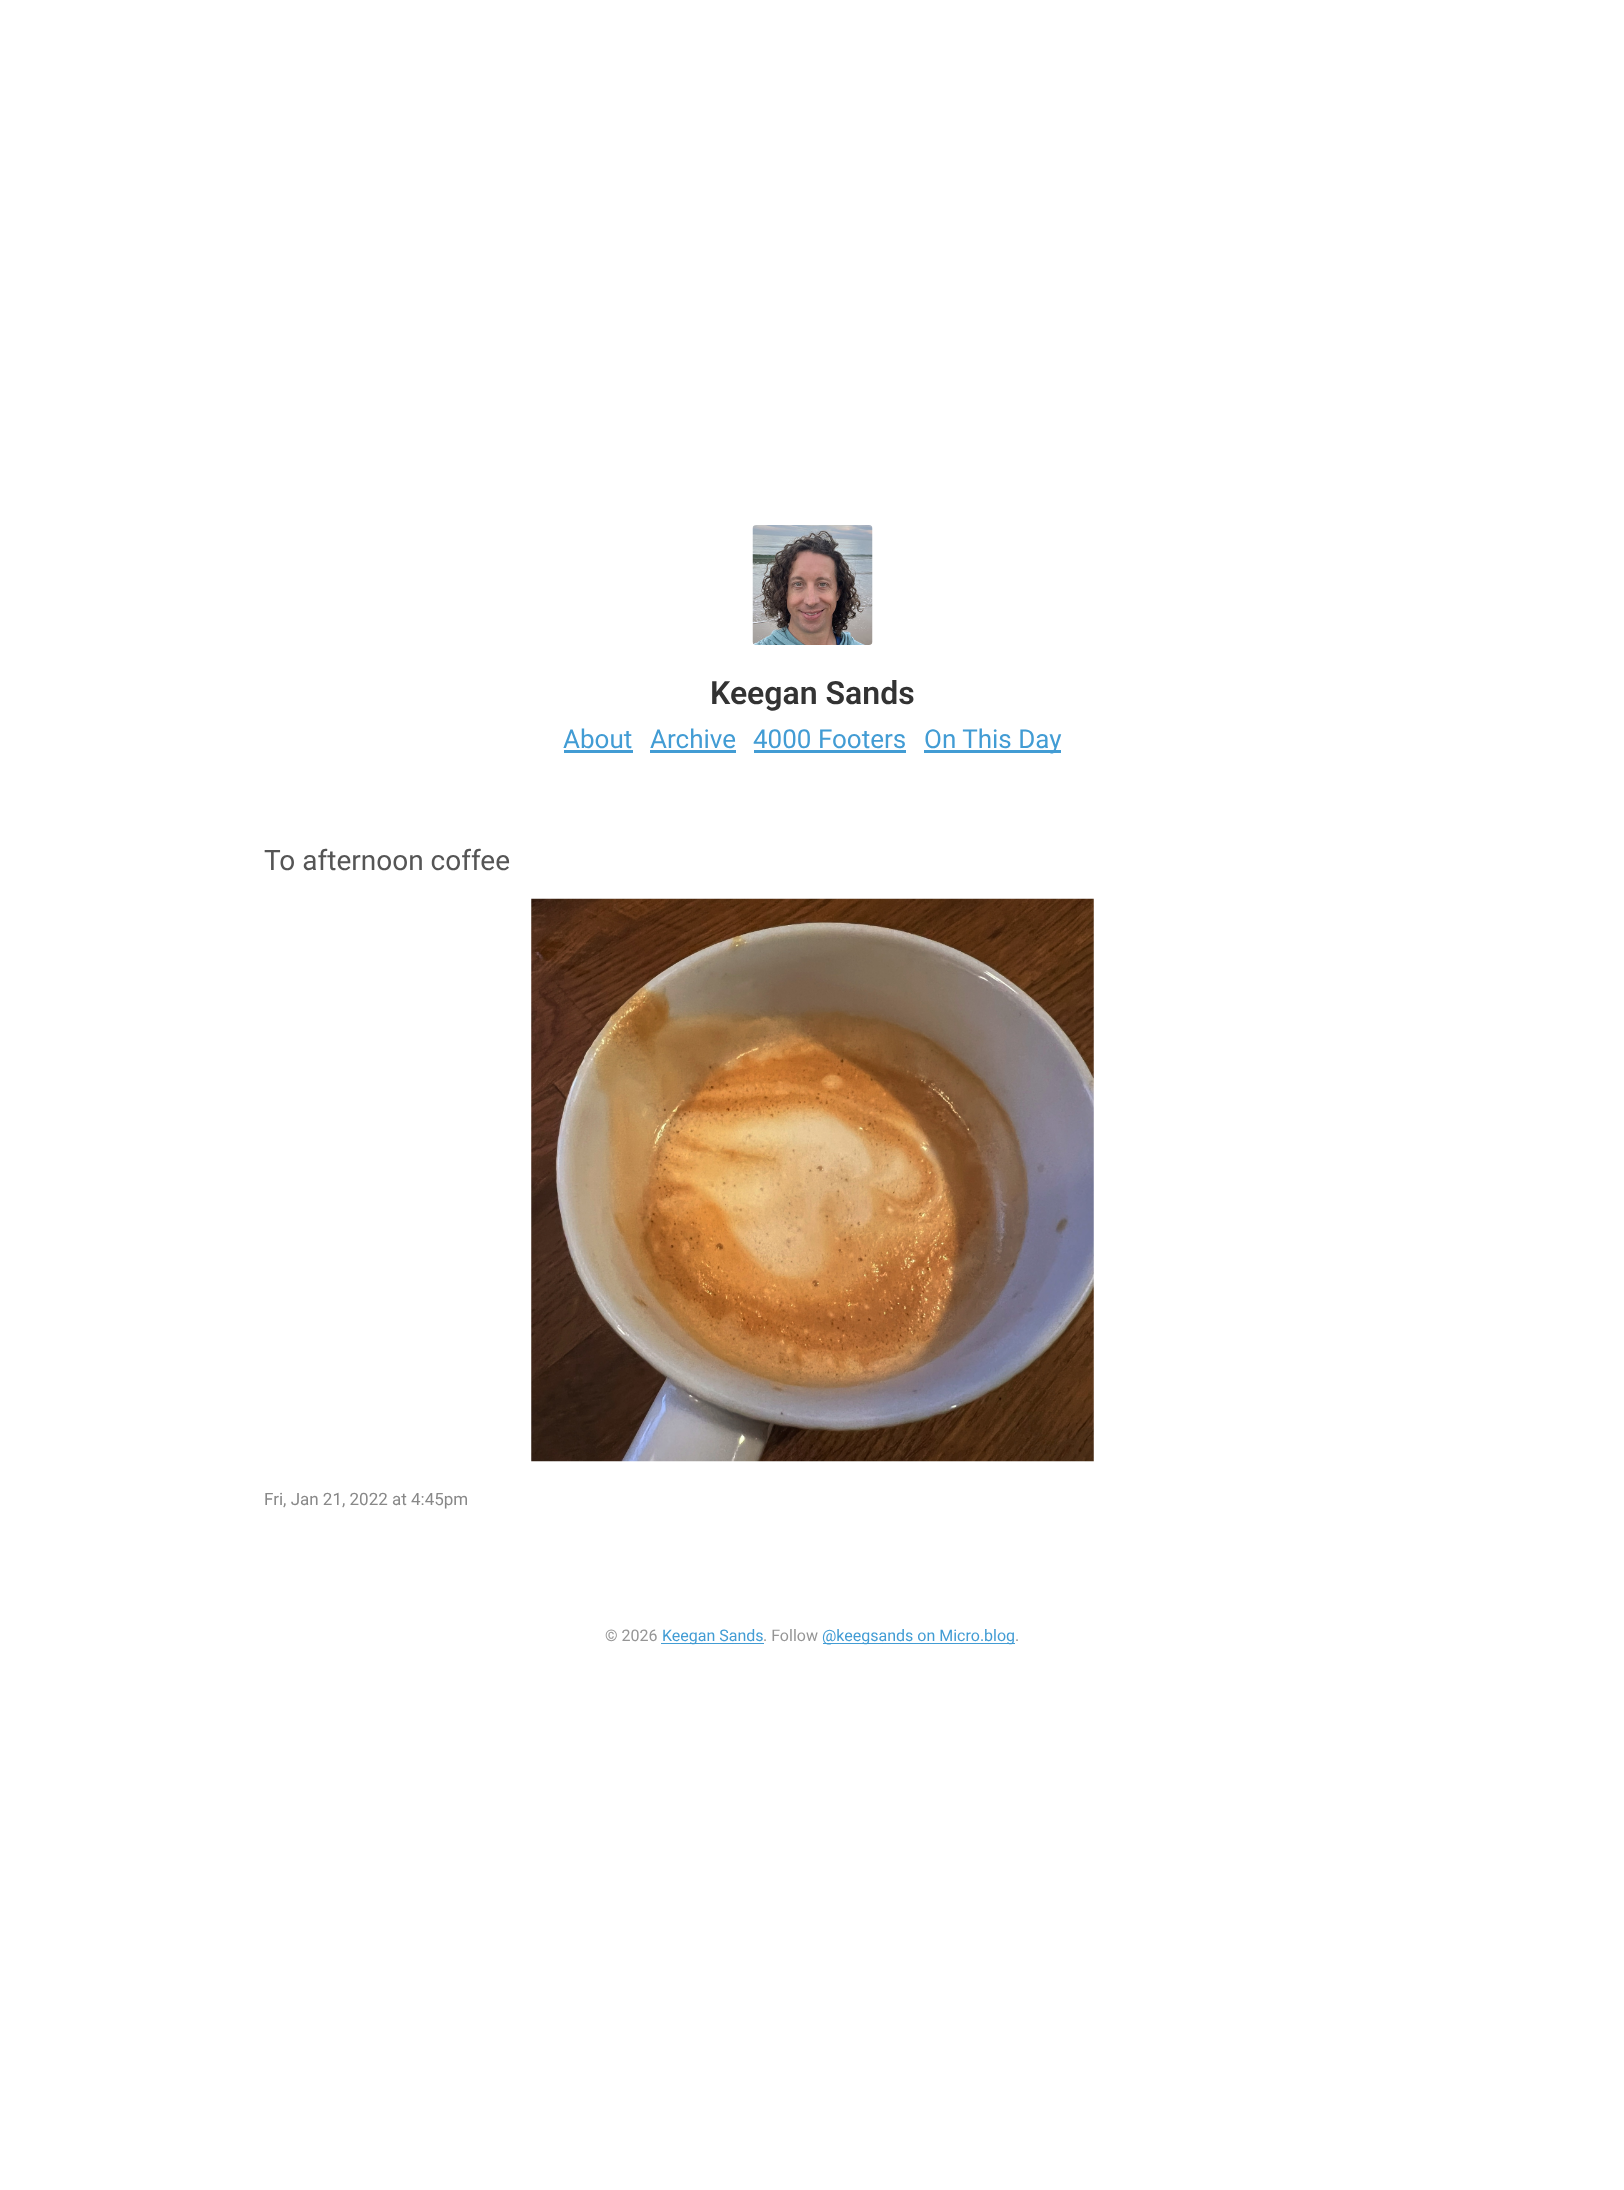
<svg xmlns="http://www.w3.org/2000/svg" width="1624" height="2190">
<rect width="100%" height="100%" fill="#fff"/>
<image x="752" y="525" width="121" height="120" href="media/1.png"/>
<text x="710" y="704" style="font-family:Roboto;font-size:32px;font-weight:600;fill:#333">Keegan Sands</text>
<text x="563" y="748" style="font-family:Roboto;font-size:26px;fill:#429cd4">About</text>
<rect x="564" y="750" width="69" height="3" fill="#429cd4"/>
<text x="650" y="748" style="font-family:Roboto;font-size:26px;fill:#429cd4">Archive</text>
<rect x="650" y="750" width="86" height="3" fill="#429cd4"/>
<text x="753" y="748" style="font-family:Roboto;font-size:26px;fill:#429cd4">4000 Footers</text>
<rect x="754" y="750" width="152" height="3" fill="#429cd4"/>
<rect x="924" y="750" width="137" height="3" fill="#429cd4"/>
<text x="924" y="748" style="font-family:Roboto;font-size:26px;fill:#429cd4">On This Day</text>
<text x="264" y="870" style="font-family:Roboto;font-size:28px;fill:#555">To afternoon coffee</text>
<image x="531" y="898" width="563" height="564" href="media/2.png"/>
<text x="264" y="1505" style="font-family:Roboto;font-size:17px;fill:#888">Fri, Jan 21, 2022 at 4:45pm</text>
<text x="605" y="1641" style="font-family:Roboto;font-size:16px;fill:#959595">© 2026</text>
<rect x="661" y="1643" width="103" height="1" fill="#429cd4"/>
<text x="662" y="1641" style="font-family:Roboto;font-size:16px;fill:#429cd4">Keegan Sands</text>
<text x="763" y="1641" style="font-family:Roboto;font-size:16px;fill:#959595">. Follow</text>
<rect x="823" y="1643" width="192" height="1" fill="#429cd4"/>
<text x="822" y="1641" style="font-family:Roboto;font-size:16px;fill:#429cd4">@keegsands on Micro.blog</text>
<text x="1015" y="1641" style="font-family:Roboto;font-size:16px;fill:#959595">.</text>
</svg>
